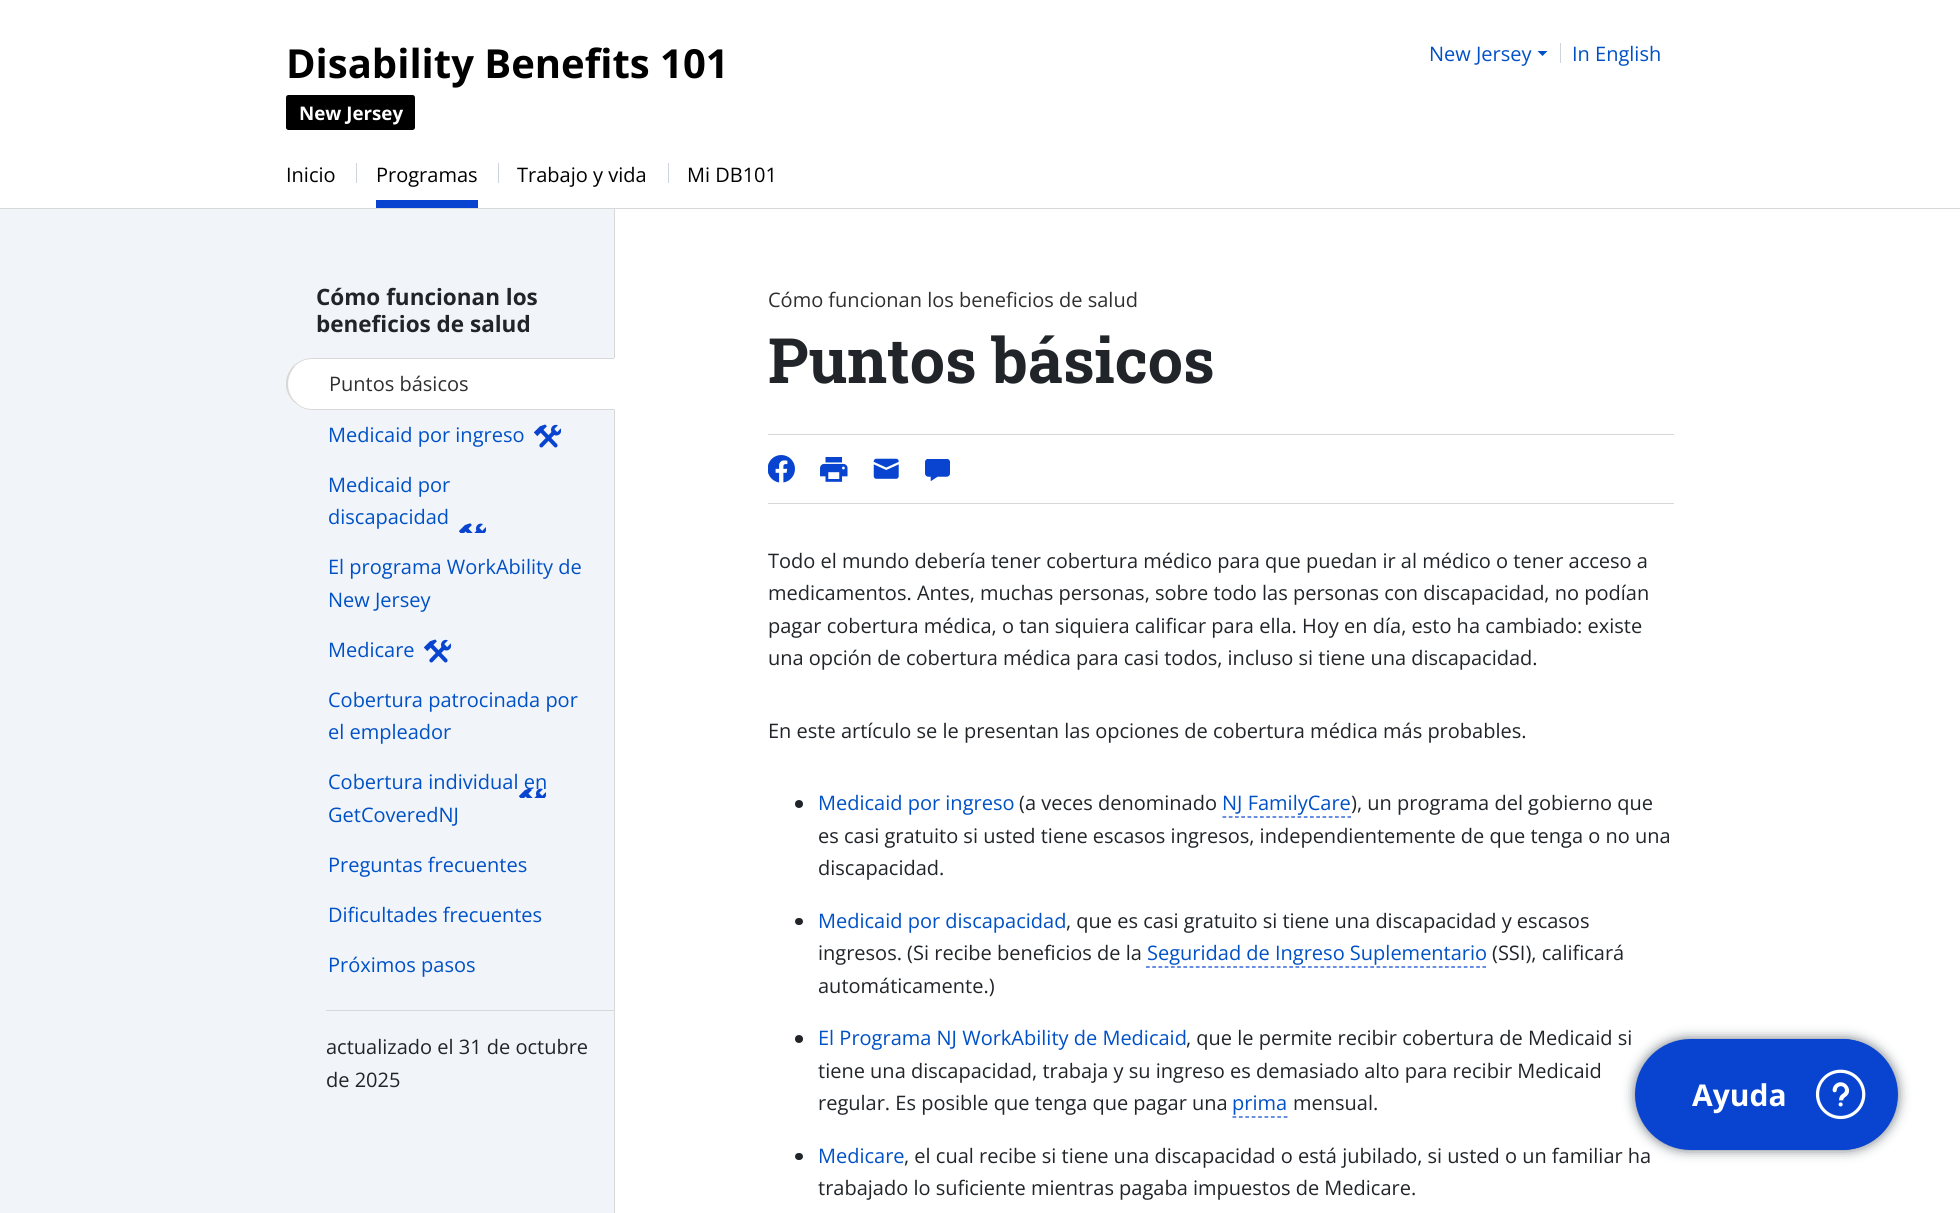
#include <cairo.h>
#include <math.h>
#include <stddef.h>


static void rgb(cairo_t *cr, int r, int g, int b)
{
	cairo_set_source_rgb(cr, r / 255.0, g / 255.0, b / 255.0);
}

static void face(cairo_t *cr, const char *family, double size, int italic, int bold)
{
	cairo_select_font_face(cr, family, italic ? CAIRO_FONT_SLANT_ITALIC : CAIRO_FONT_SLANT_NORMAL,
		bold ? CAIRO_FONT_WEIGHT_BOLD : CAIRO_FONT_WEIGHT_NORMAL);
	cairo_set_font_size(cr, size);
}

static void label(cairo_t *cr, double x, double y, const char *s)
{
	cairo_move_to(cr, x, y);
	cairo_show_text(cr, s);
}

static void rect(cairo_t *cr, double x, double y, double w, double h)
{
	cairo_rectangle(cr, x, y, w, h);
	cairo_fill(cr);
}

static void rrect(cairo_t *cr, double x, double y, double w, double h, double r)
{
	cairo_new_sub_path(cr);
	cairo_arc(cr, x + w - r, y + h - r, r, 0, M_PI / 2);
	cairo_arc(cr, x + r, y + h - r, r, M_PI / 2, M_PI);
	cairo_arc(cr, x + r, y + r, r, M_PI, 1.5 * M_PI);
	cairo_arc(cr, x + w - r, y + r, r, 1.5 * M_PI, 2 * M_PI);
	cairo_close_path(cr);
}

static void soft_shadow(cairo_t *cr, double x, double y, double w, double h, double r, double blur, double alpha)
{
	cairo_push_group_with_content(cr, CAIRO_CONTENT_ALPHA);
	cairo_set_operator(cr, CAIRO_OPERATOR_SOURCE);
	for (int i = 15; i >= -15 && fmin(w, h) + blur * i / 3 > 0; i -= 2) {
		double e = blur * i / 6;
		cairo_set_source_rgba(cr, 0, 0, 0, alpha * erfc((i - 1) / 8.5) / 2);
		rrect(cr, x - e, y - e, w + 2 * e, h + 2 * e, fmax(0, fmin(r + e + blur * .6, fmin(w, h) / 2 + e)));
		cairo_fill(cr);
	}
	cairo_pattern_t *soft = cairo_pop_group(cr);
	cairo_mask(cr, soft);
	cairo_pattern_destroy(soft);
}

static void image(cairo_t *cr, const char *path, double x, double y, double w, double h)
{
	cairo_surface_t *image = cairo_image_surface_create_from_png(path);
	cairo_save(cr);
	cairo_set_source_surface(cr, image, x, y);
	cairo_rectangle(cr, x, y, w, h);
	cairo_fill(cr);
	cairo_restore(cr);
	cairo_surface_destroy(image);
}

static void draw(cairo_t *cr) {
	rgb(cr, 255, 255, 255);
	cairo_paint(cr);
	face(cr, "Open Sans", 40, 0, 1);
	rgb(cr, 0, 0, 0);
	label(cr, 286, 78, "Disability Benefits 101");
	rrect(cr, 286, 95, 129, 35, 2.5);
	cairo_fill(cr);
	face(cr, "Open Sans", 18.75, 0, 1);
	rgb(cr, 255, 255, 255);
	label(cr, 299, 120, "New Jersey");
	face(cr, "Open Sans", 20, 0, 0);
	rgb(cr, 0, 80, 198);
	label(cr, 1429, 61, "New Jersey");
	cairo_new_path(cr);
	cairo_move_to(cr, 1537.5, 51);
	cairo_line_to(cr, 1547.5, 51);
	cairo_line_to(cr, 1542.5, 56);
	cairo_close_path(cr);
	cairo_fill(cr);
	rgb(cr, 206, 212, 218);
	rect(cr, 1560, 43, 1, 20);
	rgb(cr, 0, 80, 198);
	label(cr, 1572, 61, "In English");
	rgb(cr, 0, 0, 0);
	label(cr, 286, 182, "Inicio");
	rgb(cr, 206, 212, 218);
	rect(cr, 356, 163, 1, 20);
	rgb(cr, 8, 68, 207);
	rect(cr, 376, 200, 102, 8);
	rgb(cr, 0, 0, 0);
	label(cr, 376, 182, "Programas");
	rgb(cr, 206, 212, 218);
	rect(cr, 498, 163, 1, 20);
	rgb(cr, 0, 0, 0);
	label(cr, 517, 182, "Trabajo y vida");
	rgb(cr, 206, 212, 218);
	rect(cr, 668, 163, 1, 20);
	rgb(cr, 0, 0, 0);
	label(cr, 687, 182, "Mi DB101");
	rgb(cr, 216, 216, 216);
	rect(cr, 0, 208, 1960, 1);
	rgb(cr, 241, 245, 249);
	rect(cr, 0, 209, 614, 1004);
	rgb(cr, 216, 216, 216);
	rect(cr, 614, 208, 1, 1005);
	face(cr, "Open Sans", 22.5, 0, 1);
	rgb(cr, 33, 37, 41);
	label(cr, 316, 305, "Cómo funcionan los");
	label(cr, 316, 332, "beneficios de salud");
	rgb(cr, 255, 255, 255);
	cairo_new_path(cr);
	cairo_move_to(cr, 312, 358);
	cairo_line_to(cr, 615, 358);
	cairo_line_to(cr, 615, 410);
	cairo_line_to(cr, 312, 410);
	cairo_curve_to(cr, 297.5, 410, 286, 398.5, 286, 384);
	cairo_curve_to(cr, 286, 369.5, 297.5, 358, 312, 358);
	cairo_close_path(cr);
	cairo_fill(cr);
	rgb(cr, 216, 216, 216);
	cairo_new_path(cr);
	cairo_move_to(cr, 312, 358);
	cairo_curve_to(cr, 305, 358, 299, 361, 294, 365);
	cairo_line_to(cr, 295, 366);
	cairo_curve_to(cr, 299, 362, 305, 359, 312, 359);
	cairo_line_to(cr, 614, 359);
	cairo_line_to(cr, 614, 358);
	cairo_close_path(cr);
	cairo_fill(cr);
	cairo_new_path(cr);
	cairo_move_to(cr, 615, 410);
	cairo_line_to(cr, 614, 409);
	cairo_line_to(cr, 312, 409);
	cairo_curve_to(cr, 305, 409, 299, 406, 295, 401);
	cairo_line_to(cr, 294, 402);
	cairo_curve_to(cr, 299, 407, 305, 410, 312, 410);
	cairo_close_path(cr);
	cairo_fill(cr);
	cairo_new_path(cr);
	cairo_move_to(cr, 286, 380.5);
	cairo_curve_to(cr, 287, 374.5, 290, 369, 294, 365);
	cairo_line_to(cr, 295, 366.5);
	cairo_curve_to(cr, 286, 376, 285.5, 391.5, 295, 401.5);
	cairo_line_to(cr, 294, 402.5);
	cairo_curve_to(cr, 290, 398.5, 287, 393, 286, 387.5);
	cairo_close_path(cr);
	cairo_fill(cr);
	face(cr, "Open Sans", 20, 0, 0);
	rgb(cr, 47, 47, 47);
	label(cr, 329, 391, "Puntos básicos");
	rgb(cr, 0, 80, 198);
	label(cr, 328, 442, "Medicaid por ingreso");
	image(cr, "image0.png", 534, 424, 27, 24);
	label(cr, 328, 492, "Medicaid por");
	label(cr, 328, 524, "discapacidad");
	image(cr, "image1.png", 459, 523, 27, 10);
	label(cr, 328, 574, "El programa WorkAbility de");
	label(cr, 328, 607, "New Jersey");
	label(cr, 328, 657, "Medicare");
	image(cr, "image0.png", 424, 639, 27, 24);
	label(cr, 328, 707, "Cobertura patrocinada por");
	label(cr, 328, 739, "el empleador");
	image(cr, "image1.png", 519, 788, 27, 10);
	label(cr, 328, 789, "Cobertura individual en");
	label(cr, 328, 822, "GetCoveredNJ");
	label(cr, 328, 872, "Preguntas frecuentes");
	label(cr, 328, 922, "Dificultades frecuentes");
	label(cr, 328, 972, "Próximos pasos");
	rgb(cr, 216, 216, 216);
	rect(cr, 326, 1010, 288, 1);
	rgb(cr, 33, 37, 41);
	label(cr, 326, 1054, "actualizado el 31 de octubre");
	label(cr, 326, 1087, "de 2025");
	rgb(cr, 47, 47, 47);
	label(cr, 768, 307, "Cómo funcionan los beneficios de salud");
	face(cr, "Roboto Slab", 62.5, 0, 1);
	rgb(cr, 33, 37, 41);
	label(cr, 768, 383, "Puntos básicos");
	rgb(cr, 216, 216, 216);
	rect(cr, 768, 434, 906, 1);
	rect(cr, 768, 503, 906, 1);
	image(cr, "image2.png", 768, 455, 27, 28);
	image(cr, "image3.png", 820, 457, 28, 25);
	image(cr, "image4.png", 873, 458, 26, 21);
	image(cr, "image5.png", 925, 459, 25, 22);
	face(cr, "Open Sans", 20, 0, 0);
	rgb(cr, 33, 37, 41);
	label(cr, 768, 568, "Todo el mundo debería tener cobertura médico para que puedan ir al médico o tener acceso a");
	label(cr, 768, 600, "medicamentos. Antes, muchas personas, sobre todo las personas con discapacidad, no podían");
	label(cr, 768, 633, "pagar cobertura médica, o tan siquiera calificar para ella. Hoy en día, esto ha cambiado: existe");
	label(cr, 768, 665, "una opción de cobertura médica para casi todos, incluso si tiene una discapacidad.");
	label(cr, 768, 738, "En este artículo se le presentan las opciones de cobertura médica más probables.");
	cairo_new_path(cr);
	cairo_arc(cr, 799, 804, 4, 0, 2 * M_PI);
	cairo_fill(cr);
	rgb(cr, 0, 80, 198);
	label(cr, 818, 810, "Medicaid por ingreso");
	rgb(cr, 33, 37, 41);
	label(cr, 1019, 810, "(a veces denominado");
	rgb(cr, 0, 80, 198);
	label(cr, 1222, 810, "NJ FamilyCare");
	cairo_new_path(cr);
	cairo_move_to(cr, 1222.5, 817);
	cairo_line_to(cr, 1351, 817);
	rgb(cr, 8, 68, 207);
	cairo_set_line_width(cr, 1.2);
	cairo_set_dash(cr, (double[]){3.75, 2.5}, 2, 0);
	cairo_stroke(cr);
	rgb(cr, 33, 37, 41);
	label(cr, 1351, 810, "), un programa del gobierno que");
	label(cr, 818, 843, "es casi gratuito si usted tiene escasos ingresos, independientemente de que tenga o no una");
	label(cr, 818, 875, "discapacidad.");
	rrect(cr, 795, 918, 8, 7, 3.5);
	cairo_fill(cr);
	rgb(cr, 0, 80, 198);
	label(cr, 818, 928, "Medicaid por discapacidad");
	rgb(cr, 33, 37, 41);
	label(cr, 1066, 928, ", que es casi gratuito si tiene una discapacidad y escasos");
	label(cr, 818, 960, "ingresos. (Si recibe beneficios de la");
	rgb(cr, 0, 80, 198);
	label(cr, 1147, 960, "Seguridad de Ingreso Suplementario");
	cairo_new_path(cr);
	cairo_move_to(cr, 1146, 967);
	cairo_line_to(cr, 1486, 967);
	rgb(cr, 8, 68, 207);
	cairo_set_dash(cr, (double[]){3.75, 2.48}, 2, 0);
	cairo_stroke(cr);
	rgb(cr, 33, 37, 41);
	label(cr, 1492, 960, "(SSI), calificará");
	label(cr, 818, 993, "automáticamente.)");
	cairo_new_path(cr);
	cairo_arc(cr, 799, 1039, 4, 0, 2 * M_PI);
	cairo_fill(cr);
	rgb(cr, 0, 80, 198);
	label(cr, 818, 1045, "El Programa NJ WorkAbility de Medicaid");
	rgb(cr, 33, 37, 41);
	label(cr, 1186, 1045, ", que le permite recibir cobertura de Medicaid si");
	label(cr, 818, 1078, "tiene una discapacidad, trabaja y su ingreso es demasiado alto para recibir Medicaid");
	label(cr, 818, 1110, "regular. Es posible que tenga que pagar una");
	rgb(cr, 0, 80, 198);
	label(cr, 1232, 1110, "prima");
	cairo_new_path(cr);
	cairo_move_to(cr, 1232.5, 1117);
	cairo_line_to(cr, 1287.5, 1117);
	rgb(cr, 8, 68, 207);
	cairo_set_dash(cr, (double[]){3.75, 2.65}, 2, 0);
	cairo_stroke(cr);
	rgb(cr, 33, 37, 41);
	label(cr, 1293, 1110, "mensual.");
	rrect(cr, 795, 1153, 8, 7, 3.5);
	cairo_fill(cr);
	rgb(cr, 0, 80, 198);
	label(cr, 818, 1163, "Medicare");
	rgb(cr, 33, 37, 41);
	label(cr, 904, 1163, ", el cual recibe si tiene una discapacidad o está jubilado, si usted o un familiar ha");
	label(cr, 818, 1195, "trabajado lo suficiente mientras pagaba impuestos de Medicare.");
	rgb(cr, 108, 117, 125);
	soft_shadow(cr, 1635, 1039, 263, 111, 55.5, 6, 1);
	rgb(cr, 8, 68, 207);
	rrect(cr, 1635, 1039, 263, 111, 55.5);
	cairo_fill(cr);
	face(cr, "Open Sans", 30, 0, 1);
	rgb(cr, 255, 255, 255);
	label(cr, 1692, 1106, "Ayuda");
	image(cr, "image6.png", 1815, 1039, 74, 111);
}

int main(void) {
	cairo_surface_t *surface = cairo_image_surface_create(CAIRO_FORMAT_RGB24, 1960, 1213);
	cairo_t *cr = cairo_create(surface);
	cairo_font_options_t *options = cairo_font_options_create();
	cairo_font_options_set_hint_metrics(options, CAIRO_HINT_METRICS_OFF);
	cairo_font_options_set_hint_style(options, CAIRO_HINT_STYLE_NONE);
	cairo_set_font_options(cr, options);
	cairo_set_miter_limit(cr, 4);
	draw(cr);
	cairo_surface_write_to_png(surface, "render.png");
	cairo_font_options_destroy(options);
	cairo_destroy(cr);
	cairo_surface_destroy(surface);
	return 0;
}
